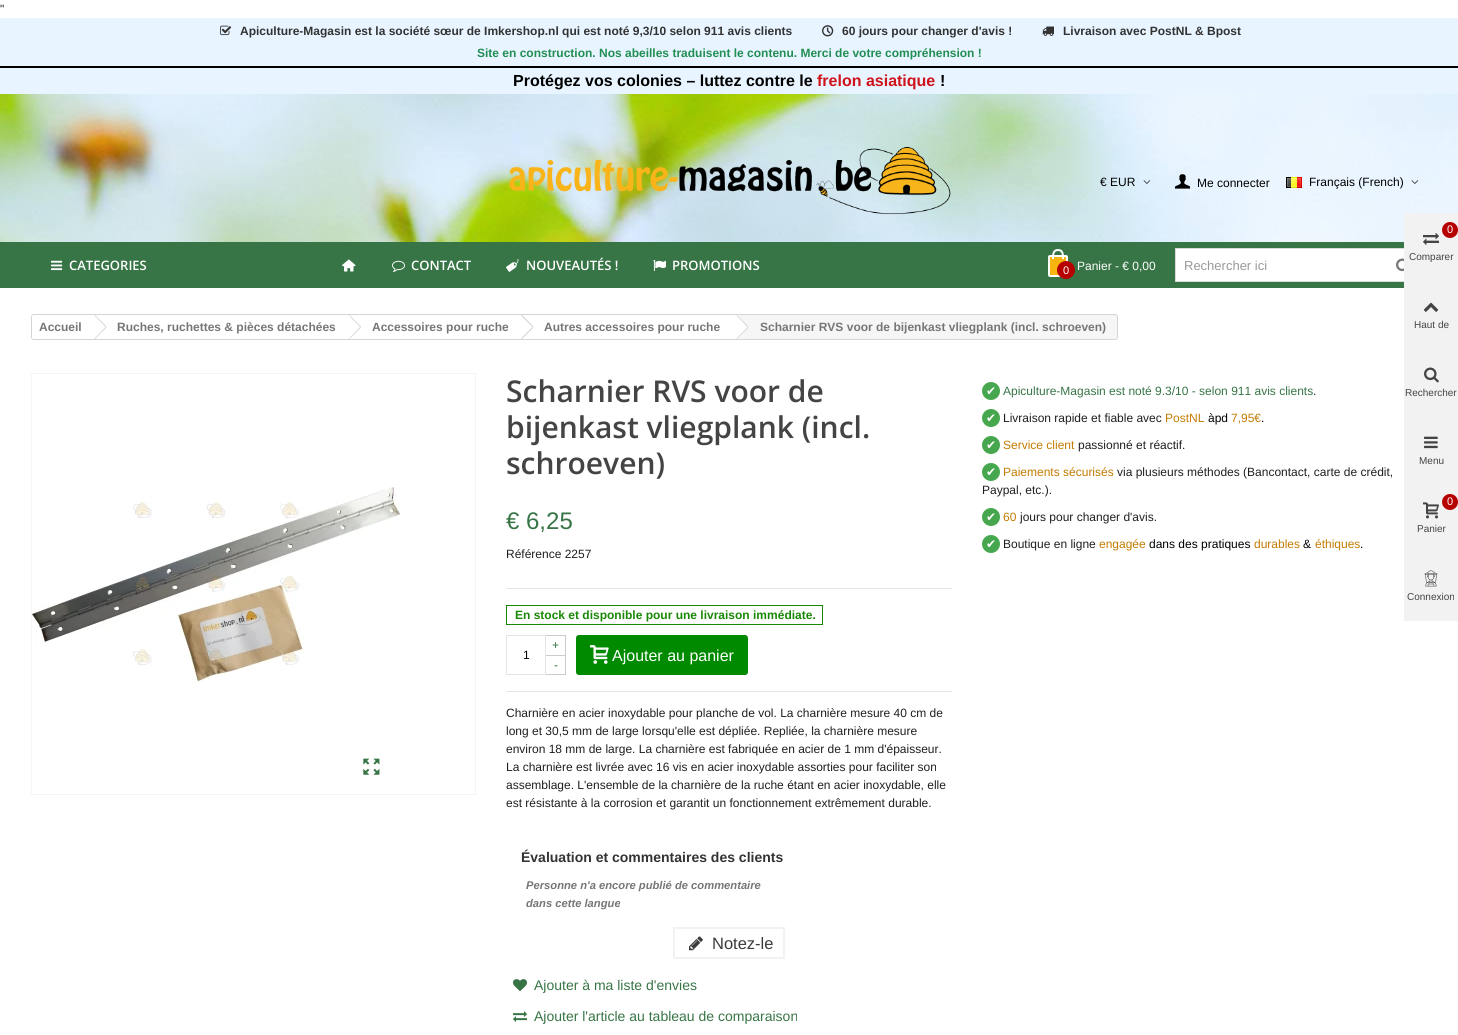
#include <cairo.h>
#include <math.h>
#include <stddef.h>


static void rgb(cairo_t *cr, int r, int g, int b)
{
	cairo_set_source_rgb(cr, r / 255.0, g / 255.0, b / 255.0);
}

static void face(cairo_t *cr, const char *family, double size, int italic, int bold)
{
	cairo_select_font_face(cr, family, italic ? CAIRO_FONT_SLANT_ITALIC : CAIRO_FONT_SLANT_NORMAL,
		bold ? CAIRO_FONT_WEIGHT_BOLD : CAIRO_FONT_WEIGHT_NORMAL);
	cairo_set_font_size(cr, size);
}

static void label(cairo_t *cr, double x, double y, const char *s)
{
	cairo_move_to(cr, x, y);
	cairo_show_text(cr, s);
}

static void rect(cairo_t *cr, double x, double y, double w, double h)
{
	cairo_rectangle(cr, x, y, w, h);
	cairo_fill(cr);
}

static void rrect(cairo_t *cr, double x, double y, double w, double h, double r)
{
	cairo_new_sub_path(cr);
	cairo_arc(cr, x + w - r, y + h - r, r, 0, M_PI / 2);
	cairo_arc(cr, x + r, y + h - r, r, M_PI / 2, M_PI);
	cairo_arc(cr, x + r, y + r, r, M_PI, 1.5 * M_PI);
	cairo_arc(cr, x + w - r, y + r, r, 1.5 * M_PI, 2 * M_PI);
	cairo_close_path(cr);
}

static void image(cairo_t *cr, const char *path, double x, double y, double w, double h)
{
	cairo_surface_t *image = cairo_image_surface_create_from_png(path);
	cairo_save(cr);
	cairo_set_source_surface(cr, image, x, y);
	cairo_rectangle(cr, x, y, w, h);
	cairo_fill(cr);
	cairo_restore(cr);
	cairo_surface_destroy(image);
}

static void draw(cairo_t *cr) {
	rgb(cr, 255, 255, 255);
	cairo_paint(cr);
	face(cr, "Liberation Sans", 12, 0, 0);
	rgb(cr, 31, 31, 31);
	label(cr, 0, 13, "\"");
	image(cr, "image0.png", 0, 94, 1458, 148);
	rgb(cr, 0, 0, 0);
	rect(cr, 0, 66, 1458, 2);
	rgb(cr, 232, 244, 255);
	rect(cr, 0, 18, 1458, 48);
	image(cr, "image1.png", 220, 25, 12, 11);
	face(cr, "Liberation Sans", 12, 0, 1);
	rgb(cr, 51, 51, 51);
	label(cr, 240, 35, "Apiculture-Magasin est la société sœur de Imkershop.nl qui est noté 9,3/10 selon 911 avis clients");
	image(cr, "image2.png", 822, 25, 12, 12);
	label(cr, 842, 35, "60 jours pour changer d'avis !");
	image(cr, "image3.png", 1042, 26, 12, 10);
	label(cr, 1063, 35, "Livraison avec PostNL & Bpost");
	rgb(cr, 33, 142, 83);
	label(cr, 477, 57, "Site en construction. Nos abeilles traduisent le contenu. Merci de votre compréhension !");
	rgb(cr, 232, 244, 255);
	rect(cr, 0, 68, 1458, 26);
	face(cr, "Liberation Sans", 16, 0, 1);
	rgb(cr, 0, 0, 0);
	label(cr, 513, 86, "Protégez vos colonies – luttez contre le");
	rgb(cr, 208, 18, 26);
	label(cr, 817, 86, "frelon asiatique");
	rgb(cr, 0, 0, 0);
	label(cr, 940, 86, "!");
	image(cr, "image4.png", 509, 147, 442, 68);
	face(cr, "Liberation Sans", 12, 0, 0);
	label(cr, 1100, 186, "€ EUR");
	image(cr, "image5.png", 1143, 180, 8, 4);
	image(cr, "image6.png", 1175, 174, 16, 15);
	label(cr, 1197, 187, "Me connecter");
	image(cr, "image7.png", 1286, 177, 16, 11);
	label(cr, 1309, 186, "Français (French)");
	image(cr, "image8.png", 1411, 180, 8, 4);
	rgb(cr, 55, 117, 70);
	rect(cr, 0, 242, 1404, 46);
	image(cr, "image9.png", 51, 260, 12, 11);
	face(cr, "Open Sans SemiBold", 13, 0, 0);
	rgb(cr, 255, 255, 255);
	label(cr, 69, 270, "CATEGORIES");
	image(cr, "image10.png", 342, 259, 14, 13);
	image(cr, "image11.png", 392, 260, 13, 12);
	label(cr, 411, 270, "CONTACT");
	image(cr, "image12.png", 506, 259, 13, 13);
	label(cr, 526, 270, "NOUVEAUTÉS !");
	image(cr, "image13.png", 653, 259, 13, 12);
	label(cr, 672, 270, "PROMOTIONS");
	rgb(cr, 248, 180, 15);
	rrect(cr, 1049, 256, 18, 20, 1);
	cairo_fill_preserve(cr);
	rgb(cr, 255, 255, 255);
	cairo_stroke(cr);
	cairo_set_fill_rule(cr, CAIRO_FILL_RULE_EVEN_ODD);
	cairo_new_path(cr);
	cairo_move_to(cr, 1058, 249);
	cairo_curve_to(cr, 1064, 249, 1064, 254.5, 1064, 259);
	cairo_line_to(cr, 1052, 259);
	cairo_curve_to(cr, 1052, 254.5, 1052, 249, 1058, 249);
	cairo_close_path(cr);
	cairo_move_to(cr, 1058, 251);
	cairo_curve_to(cr, 1062.5, 251, 1062, 256, 1062, 259);
	cairo_line_to(cr, 1054, 259);
	cairo_curve_to(cr, 1054, 256, 1053.5, 251, 1058, 251);
	cairo_close_path(cr);
	cairo_fill(cr);
	rgb(cr, 182, 0, 0);
	cairo_arc(cr, 1066, 270, 8, 0, 2 * M_PI);
	cairo_fill_preserve(cr);
	cairo_stroke(cr);
	face(cr, "Liberation Sans", 11, 0, 0);
	rgb(cr, 255, 255, 255);
	label(cr, 1063, 274, "0");
	face(cr, "Liberation Sans", 12, 0, 0);
	label(cr, 1077, 270, "Panier - € 0,00");
	rect(cr, 1176, 249, 228, 32);
	cairo_rectangle(cr, 1175.5, 248.5, 243, 33);
	rgb(cr, 218, 218, 218);
	cairo_set_line_width(cr, 1);
	cairo_stroke(cr);
	face(cr, "Liberation Sans", 13, 0, 0);
	rgb(cr, 153, 153, 153);
	label(cr, 1184, 270, "Rechercher ici");
	image(cr, "image14.png", 1396, 258, 8, 14);
	rgb(cr, 246, 246, 246);
	rrect(cr, 31.5, 314.5, 1086, 25, 2.5);
	cairo_fill_preserve(cr);
	rgb(cr, 214, 212, 212);
	cairo_stroke(cr);
	rgb(cr, 255, 255, 255);
	cairo_new_path(cr);
	cairo_move_to(cr, 34, 315);
	cairo_line_to(cr, 97, 315);
	cairo_line_to(cr, 97, 339);
	cairo_line_to(cr, 34, 339);
	cairo_curve_to(cr, 33, 339, 32, 338, 32, 337);
	cairo_line_to(cr, 32, 317);
	cairo_curve_to(cr, 32, 316, 33, 315, 34, 315);
	cairo_close_path(cr);
	cairo_fill(cr);
	face(cr, "Liberation Sans", 12, 0, 1);
	rgb(cr, 119, 118, 118);
	label(cr, 39, 331, "Accueil");
	rgb(cr, 255, 255, 255);
	cairo_set_fill_rule(cr, CAIRO_FILL_RULE_WINDING);
	cairo_new_path(cr);
	cairo_move_to(cr, 99, 315.5);
	cairo_line_to(cr, 109, 325.5);
	cairo_curve_to(cr, 110, 326.5, 110, 327.5, 109, 328.5);
	cairo_line_to(cr, 99, 338.5);
	cairo_curve_to(cr, 98.5, 339, 97, 339, 96.5, 338.5);
	cairo_line_to(cr, 86.5, 328.5);
	cairo_curve_to(cr, 85.5, 327.5, 85.5, 326.5, 86.5, 325.5);
	cairo_line_to(cr, 96.5, 315.5);
	cairo_curve_to(cr, 97, 315, 98.5, 315, 99, 315.5);
	cairo_close_path(cr);
	cairo_fill(cr);
	rect(cr, 99, 315, 251, 24);
	rgb(cr, 214, 212, 212);
	cairo_new_path(cr);
	cairo_move_to(cr, 95, 315);
	cairo_line_to(cr, 106.5, 326.5);
	cairo_line_to(cr, 105.5, 327);
	cairo_line_to(cr, 94.5, 315.5);
	cairo_close_path(cr);
	cairo_move_to(cr, 105.5, 327);
	cairo_line_to(cr, 106.5, 327.5);
	cairo_line_to(cr, 95, 339);
	cairo_line_to(cr, 94.5, 338.5);
	cairo_close_path(cr);
	cairo_fill(cr);
	rgb(cr, 119, 118, 118);
	label(cr, 117, 331, "Ruches, ruchettes & pièces détachées");
	rgb(cr, 255, 255, 255);
	cairo_new_path(cr);
	cairo_move_to(cr, 353.5, 315.5);
	cairo_line_to(cr, 363.5, 325.5);
	cairo_curve_to(cr, 364, 326.5, 364, 327.5, 363.5, 328.5);
	cairo_line_to(cr, 353.5, 338.5);
	cairo_curve_to(cr, 353, 339, 351.5, 339, 350.5, 338.5);
	cairo_line_to(cr, 341, 328.5);
	cairo_curve_to(cr, 340, 327.5, 340, 326.5, 341, 325.5);
	cairo_line_to(cr, 350.5, 315.5);
	cairo_curve_to(cr, 351.5, 315, 353, 315, 353.5, 315.5);
	cairo_close_path(cr);
	cairo_fill(cr);
	rect(cr, 350, 315, 172, 24);
	rgb(cr, 214, 212, 212);
	cairo_new_path(cr);
	cairo_move_to(cr, 349.5, 315);
	cairo_line_to(cr, 361, 326.5);
	cairo_line_to(cr, 360, 327);
	cairo_line_to(cr, 349, 315.5);
	cairo_close_path(cr);
	cairo_move_to(cr, 360, 327);
	cairo_line_to(cr, 361, 327.5);
	cairo_line_to(cr, 349.5, 339);
	cairo_line_to(cr, 349, 338.5);
	cairo_close_path(cr);
	cairo_fill(cr);
	rgb(cr, 119, 118, 118);
	label(cr, 372, 331, "Accessoires pour ruche");
	rgb(cr, 255, 255, 255);
	cairo_new_path(cr);
	cairo_move_to(cr, 526, 315.5);
	cairo_line_to(cr, 536, 325.5);
	cairo_curve_to(cr, 536.5, 326.5, 536.5, 327.5, 536, 328.5);
	cairo_line_to(cr, 526, 338.5);
	cairo_curve_to(cr, 525, 339, 524, 339, 523, 338.5);
	cairo_line_to(cr, 513, 328.5);
	cairo_curve_to(cr, 512.5, 327.5, 512.5, 326.5, 513, 325.5);
	cairo_line_to(cr, 523, 315.5);
	cairo_curve_to(cr, 524, 315, 525, 315, 526, 315.5);
	cairo_close_path(cr);
	cairo_fill(cr);
	rect(cr, 522, 315, 213, 24);
	rgb(cr, 214, 212, 212);
	cairo_new_path(cr);
	cairo_move_to(cr, 522, 315);
	cairo_line_to(cr, 533.5, 326.5);
	cairo_line_to(cr, 532.5, 327);
	cairo_line_to(cr, 521, 315.5);
	cairo_close_path(cr);
	cairo_move_to(cr, 532.5, 327);
	cairo_line_to(cr, 533.5, 327.5);
	cairo_line_to(cr, 522, 339);
	cairo_line_to(cr, 521, 338.5);
	cairo_close_path(cr);
	cairo_fill(cr);
	rgb(cr, 119, 118, 118);
	label(cr, 544, 331, "Autres accessoires pour ruche");
	rgb(cr, 255, 255, 255);
	cairo_new_path(cr);
	cairo_move_to(cr, 737.5, 315.5);
	cairo_line_to(cr, 747.5, 325.5);
	cairo_curve_to(cr, 748.5, 326.5, 748.5, 327.5, 747.5, 328.5);
	cairo_line_to(cr, 737.5, 338.5);
	cairo_curve_to(cr, 737, 339, 735.5, 339, 735, 338.5);
	cairo_line_to(cr, 725, 328.5);
	cairo_curve_to(cr, 724, 327.5, 724, 326.5, 725, 325.5);
	cairo_line_to(cr, 735, 315.5);
	cairo_curve_to(cr, 735.5, 315, 737, 315, 737.5, 315.5);
	cairo_close_path(cr);
	cairo_fill(cr);
	rgb(cr, 214, 212, 212);
	cairo_new_path(cr);
	cairo_move_to(cr, 737, 315);
	cairo_line_to(cr, 748.5, 326.5);
	cairo_line_to(cr, 747.5, 327);
	cairo_line_to(cr, 736.5, 315.5);
	cairo_close_path(cr);
	cairo_move_to(cr, 747.5, 327);
	cairo_line_to(cr, 748.5, 327.5);
	cairo_line_to(cr, 737, 339);
	cairo_line_to(cr, 736.5, 338.5);
	cairo_close_path(cr);
	cairo_fill(cr);
	rgb(cr, 119, 118, 118);
	label(cr, 760, 331, "Scharnier RVS voor de bijenkast vliegplank (incl. schroeven)");
	cairo_rectangle(cr, 31.5, 373.5, 444, 421);
	rgb(cr, 245, 245, 245);
	cairo_stroke(cr);
	image(cr, "image15.png", 32, 487, 368, 194);
	image(cr, "image16.png", 363, 758, 17, 17);
	face(cr, "Open Sans SemiBold", 30, 0, 0);
	rgb(cr, 68, 68, 68);
	label(cr, 506, 402, "Scharnier RVS voor de");
	label(cr, 506, 438, "bijenkast vliegplank (incl.");
	label(cr, 506, 474, "schroeven)");
	face(cr, "Liberation Sans", 24, 0, 0);
	rgb(cr, 55, 117, 70);
	label(cr, 506, 529, "€ 6,25");
	face(cr, "Liberation Sans", 12, 0, 0);
	rgb(cr, 31, 31, 31);
	label(cr, 506, 558, "Référence 2257");
	rgb(cr, 229, 229, 229);
	rect(cr, 506, 588, 446, 1);
	cairo_rectangle(cr, 506.5, 605.5, 316, 19);
	rgb(cr, 26, 136, 7);
	cairo_stroke(cr);
	face(cr, "Liberation Sans", 12, 0, 1);
	label(cr, 515, 619, "En stock et disponible pour une livraison immédiate.");
	rgb(cr, 229, 229, 229);
	rect(cr, 506, 691, 446, 1);
	rgb(cr, 204, 204, 204);
	rect(cr, 546, 635, 20, 1);
	rect(cr, 565, 635, 1, 20);
	face(cr, "Liberation Sans", 12, 0, 0);
	rgb(cr, 55, 117, 70);
	label(cr, 552, 649, "+");
	cairo_rectangle(cr, 506.5, 635.5, 39, 39);
	rgb(cr, 229, 229, 229);
	cairo_stroke(cr);
	rgb(cr, 0, 0, 0);
	label(cr, 523, 659, "1");
	rgb(cr, 204, 204, 204);
	rect(cr, 546, 655, 20, 1);
	rect(cr, 565, 655, 1, 20);
	rect(cr, 546, 674, 20, 1);
	rgb(cr, 55, 117, 70);
	label(cr, 554, 669, "-");
	rgb(cr, 0, 138, 0);
	rrect(cr, 577, 636, 170, 38, 2);
	cairo_fill_preserve(cr);
	cairo_set_line_width(cr, 2);
	cairo_stroke(cr);
	image(cr, "image17.png", 590, 645, 19, 19);
	face(cr, "Liberation Sans", 16, 0, 0);
	rgb(cr, 255, 255, 255);
	label(cr, 612, 661, "Ajouter au panier");
	face(cr, "Liberation Sans", 12, 0, 0);
	rgb(cr, 31, 31, 31);
	label(cr, 506, 717, "Charnière en acier inoxydable pour planche de vol. La charnière mesure 40 cm de");
	label(cr, 506, 735, "long et 30,5 mm de large lorsqu'elle est dépliée. Repliée, la charnière mesure");
	label(cr, 506, 753, "environ 18 mm de large. La charnière est fabriquée en acier de 1 mm d'épaisseur.");
	label(cr, 506, 771, "La charnière est livrée avec 16 vis en acier inoxydable assorties pour faciliter son");
	label(cr, 506, 789, "assemblage. L'ensemble de la charnière de la ruche étant en acier inoxydable, elle");
	label(cr, 506, 807, "est résistante à la corrosion et garantit un fonctionnement extrêmement durable.");
	face(cr, "Liberation Sans", 14, 0, 1);
	rgb(cr, 51, 51, 51);
	label(cr, 521, 862, "Évaluation et commentaires des clients");
	face(cr, "Liberation Sans", 11.2, 1, 1);
	rgb(cr, 119, 118, 118);
	label(cr, 526, 889, "Personne n'a encore publié de commentaire");
	label(cr, 526, 907, "dans cette langue");
	cairo_rectangle(cr, 674, 928, 110, 30);
	rgb(cr, 242, 242, 242);
	cairo_stroke(cr);
	image(cr, "image18.png", 689, 936, 14, 15);
	face(cr, "Liberation Sans", 16.5, 0, 0);
	rgb(cr, 59, 59, 59);
	label(cr, 712, 949, "Notez-le");
	image(cr, "image19.png", 513, 979, 14, 12);
	face(cr, "Liberation Sans", 14, 0, 0);
	rgb(cr, 55, 117, 70);
	label(cr, 534, 990, "Ajouter à ma liste d'envies");
	image(cr, "image20.png", 513, 1011, 14, 11);
	label(cr, 534, 1021, "Ajouter l'article au tableau de comparaison");
	rgb(cr, 70, 167, 78);
	cairo_new_path(cr);
	cairo_arc(cr, 991, 391, 9, 0, 2 * M_PI);
	cairo_fill(cr);
	face(cr, "DejaVu Sans", 12, 0, 0);
	rgb(cr, 255, 255, 255);
	label(cr, 986, 395, "✔");
	face(cr, "Liberation Sans", 12, 0, 0);
	rgb(cr, 55, 117, 70);
	label(cr, 1003, 395, "Apiculture-Magasin est noté 9.3/10 - selon 911 avis clients");
	rgb(cr, 31, 31, 31);
	label(cr, 1313, 395, ".");
	rgb(cr, 70, 167, 78);
	cairo_new_path(cr);
	cairo_arc(cr, 991, 418, 9, 0, 2 * M_PI);
	cairo_fill(cr);
	face(cr, "DejaVu Sans", 12, 0, 0);
	rgb(cr, 255, 255, 255);
	label(cr, 986, 422, "✔");
	face(cr, "Liberation Sans", 12, 0, 0);
	rgb(cr, 31, 31, 31);
	label(cr, 1003, 422, "Livraison rapide et fiable avec");
	rgb(cr, 196, 123, 2);
	label(cr, 1165, 422, "PostNL");
	rgb(cr, 0, 0, 0);
	label(cr, 1208, 422, "àpd");
	rgb(cr, 196, 123, 2);
	label(cr, 1231, 422, "7,95€");
	rgb(cr, 0, 0, 0);
	label(cr, 1261, 422, ".");
	rgb(cr, 70, 167, 78);
	cairo_new_path(cr);
	cairo_arc(cr, 991, 445, 9, 0, 2 * M_PI);
	cairo_fill(cr);
	face(cr, "DejaVu Sans", 12, 0, 0);
	rgb(cr, 255, 255, 255);
	label(cr, 986, 449, "✔");
	face(cr, "Liberation Sans", 12, 0, 0);
	rgb(cr, 196, 123, 2);
	label(cr, 1003, 449, "Service client");
	rgb(cr, 31, 31, 31);
	label(cr, 1078, 449, "passionné et réactif.");
	rgb(cr, 196, 123, 2);
	label(cr, 1003, 476, "Paiements sécurisés");
	rgb(cr, 31, 31, 31);
	label(cr, 1117, 476, "via plusieurs méthodes (Bancontact, carte de crédit,");
	label(cr, 982, 494, "Paypal, etc.).");
	rgb(cr, 70, 167, 78);
	cairo_new_path(cr);
	cairo_arc(cr, 991, 472, 9, 0, 2 * M_PI);
	cairo_fill(cr);
	face(cr, "DejaVu Sans", 12, 0, 0);
	rgb(cr, 255, 255, 255);
	label(cr, 986, 476, "✔");
	rgb(cr, 70, 167, 78);
	cairo_new_path(cr);
	cairo_arc(cr, 991, 517, 9, 0, 2 * M_PI);
	cairo_fill(cr);
	rgb(cr, 255, 255, 255);
	label(cr, 986, 521, "✔");
	face(cr, "Liberation Sans", 12, 0, 0);
	rgb(cr, 196, 123, 2);
	label(cr, 1003, 521, "60");
	rgb(cr, 31, 31, 31);
	label(cr, 1020, 521, "jours pour changer d'avis.");
	rgb(cr, 70, 167, 78);
	cairo_new_path(cr);
	cairo_arc(cr, 991, 544, 9, 0, 2 * M_PI);
	cairo_fill(cr);
	face(cr, "DejaVu Sans", 12, 0, 0);
	rgb(cr, 255, 255, 255);
	label(cr, 986, 548, "✔");
	face(cr, "Liberation Sans", 12, 0, 0);
	rgb(cr, 31, 31, 31);
	label(cr, 1003, 548, "Boutique en ligne");
	rgb(cr, 196, 123, 2);
	label(cr, 1099, 548, "engagée");
	rgb(cr, 0, 0, 0);
	label(cr, 1149, 548, "dans des pratiques");
	rgb(cr, 196, 123, 2);
	label(cr, 1254, 548, "durables");
	rgb(cr, 0, 0, 0);
	label(cr, 1303, 548, "&");
	rgb(cr, 196, 123, 2);
	label(cr, 1315, 548, "éthiques");
	rgb(cr, 0, 0, 0);
	label(cr, 1360, 548, ".");
	rgb(cr, 242, 242, 242);
	rect(cr, 1404, 213, 54, 408);
	rgb(cr, 182, 0, 0);
	cairo_new_path(cr);
	cairo_arc(cr, 1450, 230, 8, 0, 2 * M_PI);
	cairo_fill(cr);
	face(cr, "Liberation Sans", 11, 0, 0);
	rgb(cr, 255, 255, 255);
	label(cr, 1447, 233, "0");
	image(cr, "image21.png", 1423, 233, 16, 12);
	face(cr, "Liberation Sans", 10, 0, 0);
	rgb(cr, 68, 68, 68);
	label(cr, 1409, 260, "Comparer");
	image(cr, "image22.png", 1423, 302, 16, 10);
	label(cr, 1414, 328, "Haut de");
	image(cr, "image23.png", 1424, 367, 15, 16);
	label(cr, 1405, 396, "Rechercher");
	image(cr, "image24.png", 1424, 436, 14, 13);
	label(cr, 1419, 464, "Menu");
	image(cr, "image25.png", 1423, 502, 16, 17);
	rgb(cr, 182, 0, 0);
	cairo_arc(cr, 1450, 502, 8, 0, 2 * M_PI);
	cairo_fill(cr);
	face(cr, "Liberation Sans", 11, 0, 0);
	rgb(cr, 255, 255, 255);
	label(cr, 1447, 505, "0");
	face(cr, "Liberation Sans", 10, 0, 0);
	rgb(cr, 68, 68, 68);
	label(cr, 1417, 532, "Panier");
	image(cr, "image26.png", 1424, 570, 14, 17);
	label(cr, 1407, 600, "Connexion");
}

int main(void) {
	cairo_surface_t *surface = cairo_image_surface_create(CAIRO_FORMAT_RGB24, 1458, 1035);
	cairo_t *cr = cairo_create(surface);
	cairo_font_options_t *options = cairo_font_options_create();
	cairo_font_options_set_hint_metrics(options, CAIRO_HINT_METRICS_OFF);
	cairo_font_options_set_hint_style(options, CAIRO_HINT_STYLE_NONE);
	cairo_set_font_options(cr, options);
	cairo_set_miter_limit(cr, 4);
	draw(cr);
	cairo_surface_write_to_png(surface, "render.png");
	cairo_font_options_destroy(options);
	cairo_destroy(cr);
	cairo_surface_destroy(surface);
	return 0;
}
